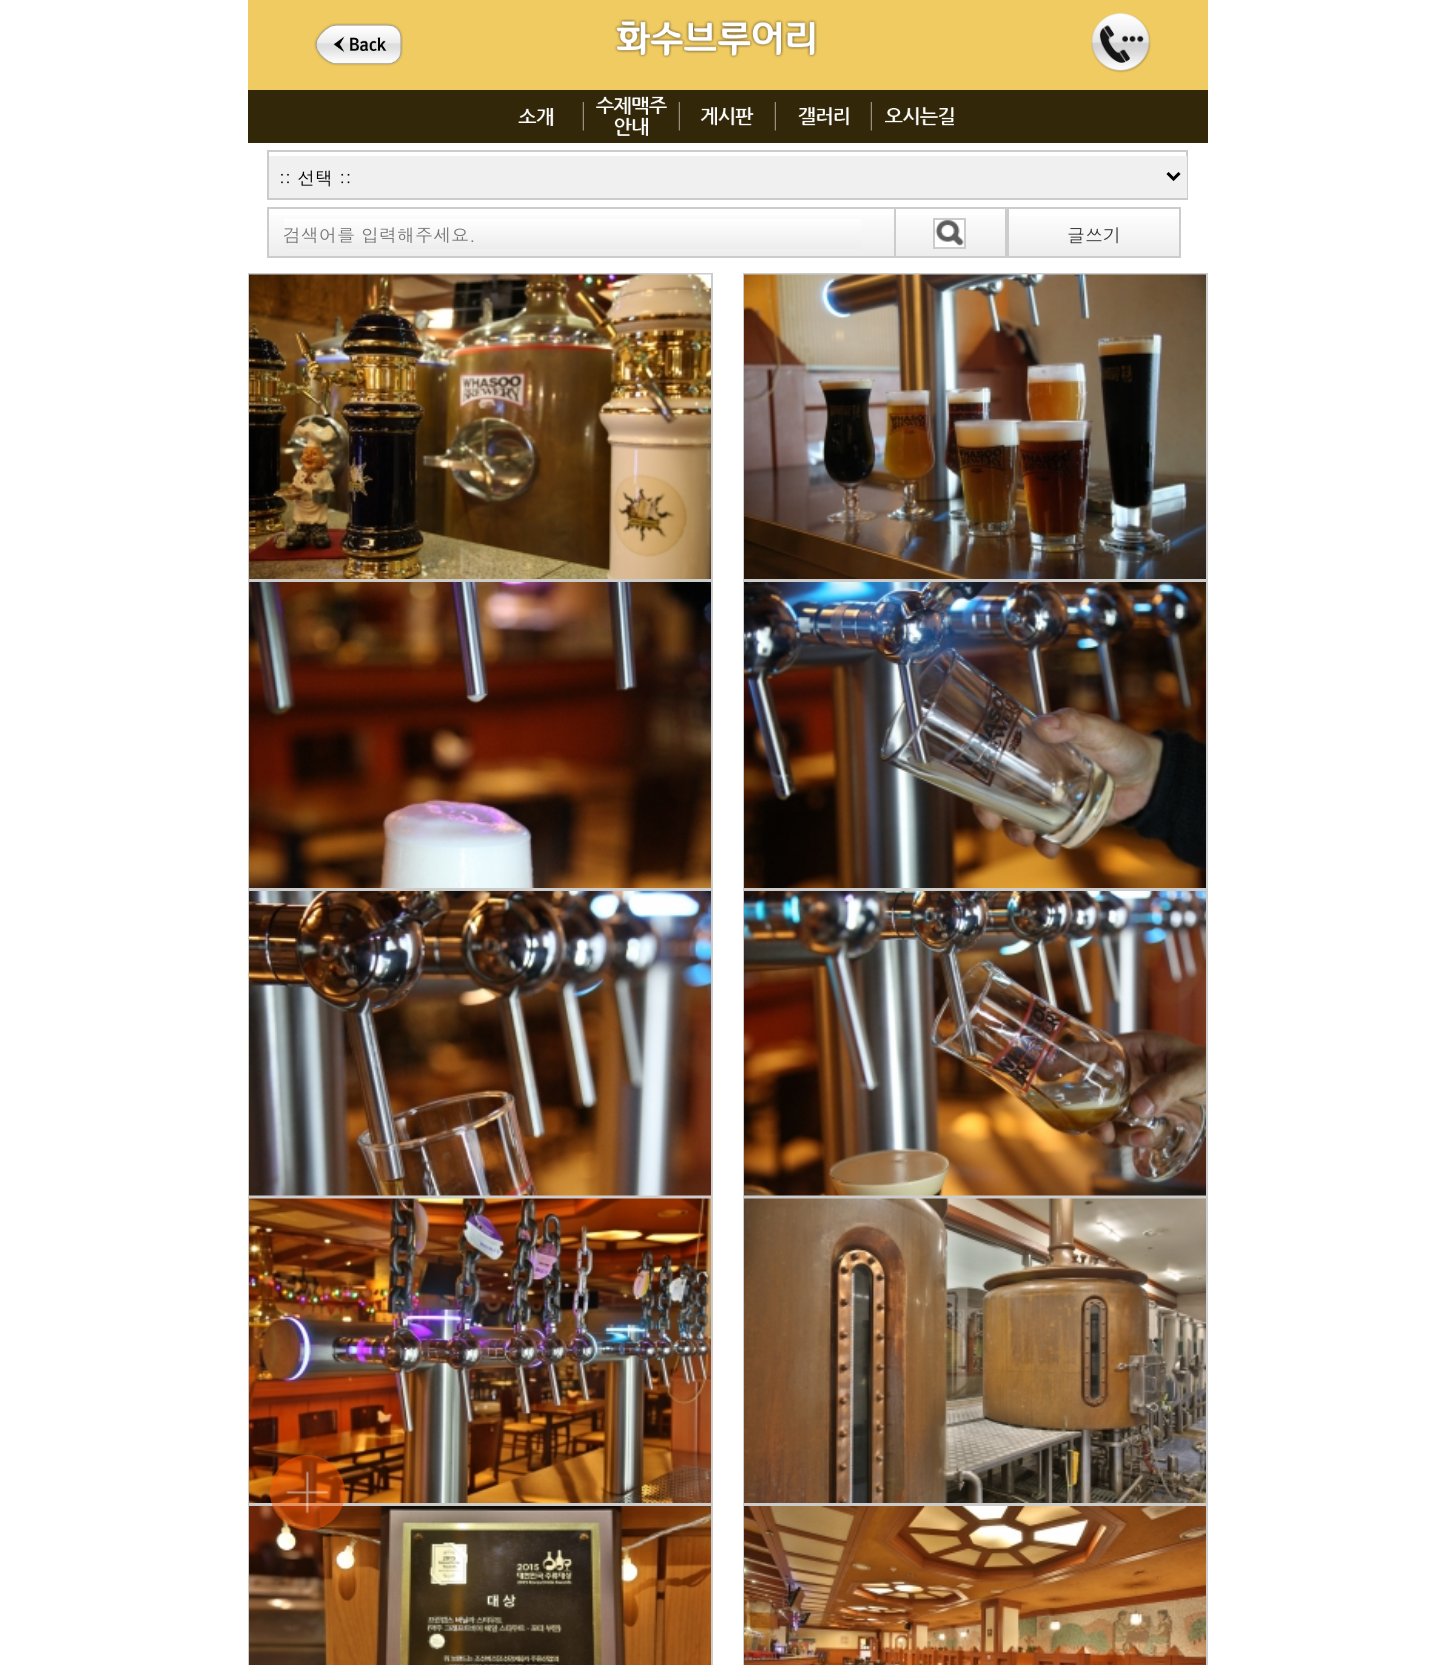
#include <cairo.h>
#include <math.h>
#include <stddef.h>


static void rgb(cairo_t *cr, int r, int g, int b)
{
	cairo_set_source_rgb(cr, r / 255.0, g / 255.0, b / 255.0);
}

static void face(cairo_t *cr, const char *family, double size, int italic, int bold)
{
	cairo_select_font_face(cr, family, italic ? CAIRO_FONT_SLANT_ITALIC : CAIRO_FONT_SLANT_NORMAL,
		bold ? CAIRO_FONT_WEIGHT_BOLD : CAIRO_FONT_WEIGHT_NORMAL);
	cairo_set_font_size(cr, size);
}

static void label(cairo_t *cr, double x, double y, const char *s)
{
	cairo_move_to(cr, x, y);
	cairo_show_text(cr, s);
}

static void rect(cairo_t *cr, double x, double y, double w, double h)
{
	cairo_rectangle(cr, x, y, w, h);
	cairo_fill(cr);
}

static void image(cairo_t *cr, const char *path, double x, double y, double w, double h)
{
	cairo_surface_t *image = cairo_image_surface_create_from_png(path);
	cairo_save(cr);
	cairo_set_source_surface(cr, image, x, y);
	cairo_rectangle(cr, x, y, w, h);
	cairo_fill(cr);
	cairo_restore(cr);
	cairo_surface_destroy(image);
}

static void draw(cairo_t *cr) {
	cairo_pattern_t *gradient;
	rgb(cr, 255, 255, 255);
	cairo_paint(cr);
	rgb(cr, 239, 203, 97);
	rect(cr, 248, 0, 960, 90);
	image(cr, "image0.png", 314, 23, 89, 43);
	image(cr, "image1.png", 614, 19, 203, 39);
	image(cr, "image2.png", 1091, 13, 60, 60);
	rgb(cr, 50, 39, 9);
	rect(cr, 248, 90, 960, 53);
	image(cr, "image3.png", 518, 102, 66, 29);
	image(cr, "image4.png", 596, 96, 84, 40);
	image(cr, "image5.png", 700, 102, 76, 29);
	image(cr, "image6.png", 798, 102, 74, 29);
	image(cr, "image7.png", 885, 107, 69, 19);
	cairo_rectangle(cr, 268, 151, 919, 48);
	rgb(cr, 204, 204, 204);
	cairo_stroke(cr);
	rgb(cr, 240, 240, 240);
	rect(cr, 269, 156, 918, 42);
	cairo_new_path(cr);
	cairo_move_to(cr, 1167.5, 173);
	cairo_line_to(cr, 1173.5, 179);
	cairo_line_to(cr, 1179.5, 173);
	rgb(cr, 0, 0, 0);
	cairo_set_line_width(cr, 3);
	cairo_stroke(cr);
	face(cr, "Dotum", 18, 0, 0);
	label(cr, 279, 185, ":: 선택 ::");
	gradient = cairo_pattern_create_linear(637, 208, 637, 257);
	cairo_pattern_add_color_stop_rgba(gradient, 0, 1, 1, 1, 1);
	cairo_pattern_add_color_stop_rgba(gradient, 1, 0.929, 0.929, 0.929, 1);
	cairo_set_source(cr, gradient);
	cairo_pattern_destroy(gradient);
	rect(cr, 269, 215, 736, 41);
	cairo_rectangle(cr, 268, 208, 738, 49);
	rgb(cr, 204, 204, 204);
	cairo_set_line_width(cr, 2);
	cairo_stroke(cr);
	gradient = cairo_pattern_create_linear(572, 219, 572, 249);
	cairo_pattern_add_color_stop_rgba(gradient, 0, 1, 1, 1, 1);
	cairo_pattern_add_color_stop_rgba(gradient, 1, 0.929, 0.929, 0.929, 1);
	cairo_set_source(cr, gradient);
	cairo_pattern_destroy(gradient);
	rect(cr, 284, 219, 577, 30);
	rgb(cr, 117, 117, 117);
	label(cr, 283, 242, "검색어를 입력해주세요.");
	rgb(cr, 204, 204, 204);
	rect(cr, 894, 209, 2, 48);
	rgb(cr, 255, 255, 255);
	cairo_rectangle(cr, 934, 219, 31, 29);
	cairo_fill_preserve(cr);
	rgb(cr, 204, 204, 204);
	cairo_stroke(cr);
	image(cr, "image8.png", 935, 220, 29, 26);
	gradient = cairo_pattern_create_linear(1094, 209, 1094, 257);
	cairo_pattern_add_color_stop_rgba(gradient, 0, 1, 1, 1, 1);
	cairo_pattern_add_color_stop_rgba(gradient, 1, 0.929, 0.929, 0.929, 1);
	cairo_set_source(cr, gradient);
	cairo_pattern_destroy(gradient);
	rect(cr, 1009, 216, 170, 40);
	cairo_rectangle(cr, 1008, 208, 172, 49);
	rgb(cr, 204, 204, 204);
	cairo_stroke(cr);
	rgb(cr, 51, 51, 51);
	label(cr, 1067, 242, "글쓰기");
	cairo_rectangle(cr, 249, 274, 463, 306);
	rgb(cr, 204, 204, 204);
	cairo_stroke(cr);
	image(cr, "image9.png", 249, 274, 462, 305);
	cairo_rectangle(cr, 744, 274, 463, 306);
	cairo_stroke(cr);
	image(cr, "image10.png", 744, 274, 462, 305);
	cairo_rectangle(cr, 249, 582, 463, 307);
	cairo_stroke(cr);
	image(cr, "image11.png", 249, 582, 462, 306);
	cairo_rectangle(cr, 744, 582, 463, 307);
	cairo_stroke(cr);
	image(cr, "image12.png", 744, 582, 462, 306);
	cairo_rectangle(cr, 249, 891, 463, 305);
	cairo_stroke(cr);
	image(cr, "image13.png", 249, 891, 462, 305);
	cairo_rectangle(cr, 744, 891, 463, 305);
	cairo_stroke(cr);
	image(cr, "image14.png", 744, 891, 462, 305);
	cairo_rectangle(cr, 249, 1198, 463, 306);
	cairo_stroke(cr);
	image(cr, "image15.png", 249, 1198, 462, 305);
	cairo_rectangle(cr, 744, 1198, 463, 306);
	cairo_stroke(cr);
	image(cr, "image16.png", 744, 1198, 462, 305);
	cairo_rectangle(cr, 249, 1506, 463, 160);
	cairo_stroke(cr);
	image(cr, "image17.png", 249, 1506, 462, 159);
	cairo_rectangle(cr, 744, 1506, 463, 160);
	cairo_stroke(cr);
	image(cr, "image18.png", 744, 1506, 462, 159);
	cairo_set_source_rgba(cr, 1, 0.337, 0, 0.5);
	cairo_arc(cr, 307.5, 1492.5, 37.5, 0, 2 * M_PI);
	cairo_fill(cr);
	image(cr, "image19.png", 286, 1471, 43, 43);
}

int main(void) {
	cairo_surface_t *surface = cairo_image_surface_create(CAIRO_FORMAT_RGB24, 1455, 1665);
	cairo_t *cr = cairo_create(surface);
	cairo_font_options_t *options = cairo_font_options_create();
	cairo_font_options_set_hint_metrics(options, CAIRO_HINT_METRICS_OFF);
	cairo_font_options_set_hint_style(options, CAIRO_HINT_STYLE_NONE);
	cairo_set_font_options(cr, options);
	cairo_set_miter_limit(cr, 4);
	draw(cr);
	cairo_surface_write_to_png(surface, "render.png");
	cairo_font_options_destroy(options);
	cairo_destroy(cr);
	cairo_surface_destroy(surface);
	return 0;
}
